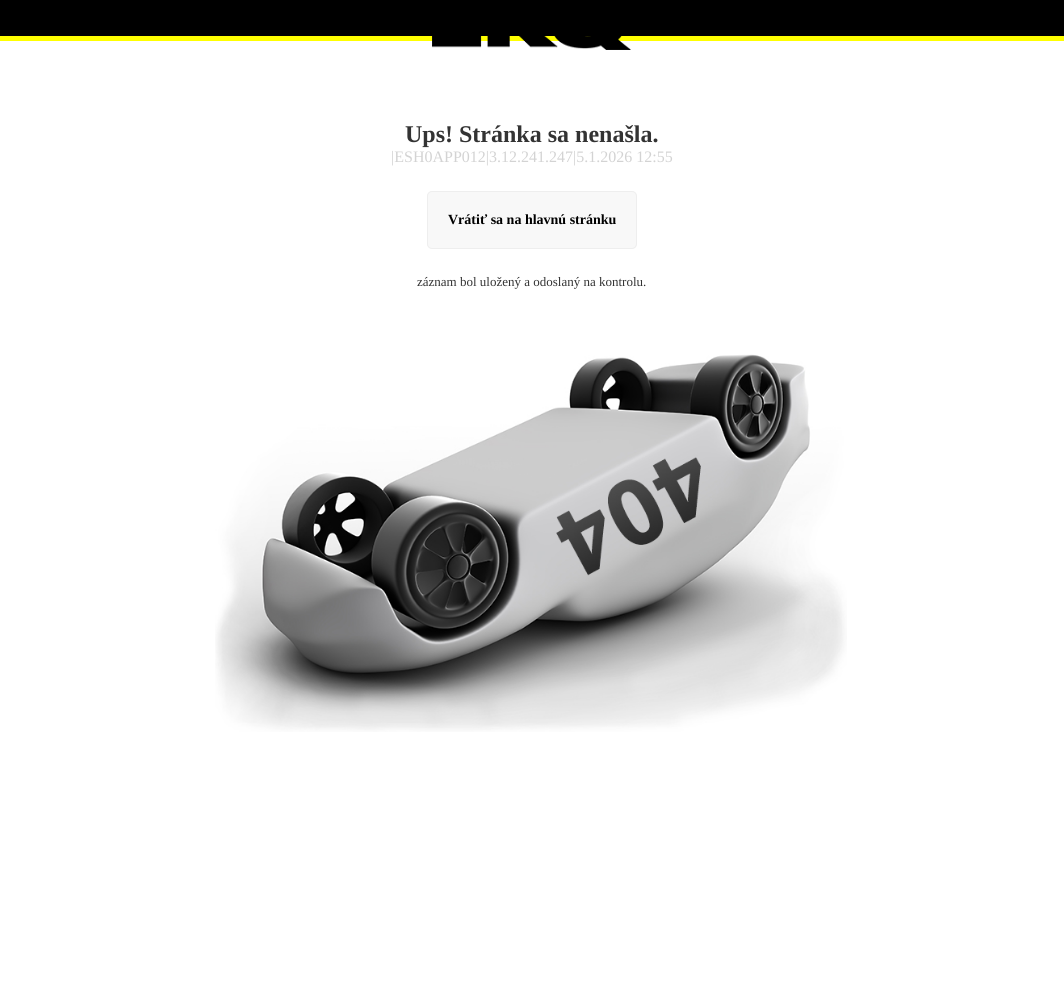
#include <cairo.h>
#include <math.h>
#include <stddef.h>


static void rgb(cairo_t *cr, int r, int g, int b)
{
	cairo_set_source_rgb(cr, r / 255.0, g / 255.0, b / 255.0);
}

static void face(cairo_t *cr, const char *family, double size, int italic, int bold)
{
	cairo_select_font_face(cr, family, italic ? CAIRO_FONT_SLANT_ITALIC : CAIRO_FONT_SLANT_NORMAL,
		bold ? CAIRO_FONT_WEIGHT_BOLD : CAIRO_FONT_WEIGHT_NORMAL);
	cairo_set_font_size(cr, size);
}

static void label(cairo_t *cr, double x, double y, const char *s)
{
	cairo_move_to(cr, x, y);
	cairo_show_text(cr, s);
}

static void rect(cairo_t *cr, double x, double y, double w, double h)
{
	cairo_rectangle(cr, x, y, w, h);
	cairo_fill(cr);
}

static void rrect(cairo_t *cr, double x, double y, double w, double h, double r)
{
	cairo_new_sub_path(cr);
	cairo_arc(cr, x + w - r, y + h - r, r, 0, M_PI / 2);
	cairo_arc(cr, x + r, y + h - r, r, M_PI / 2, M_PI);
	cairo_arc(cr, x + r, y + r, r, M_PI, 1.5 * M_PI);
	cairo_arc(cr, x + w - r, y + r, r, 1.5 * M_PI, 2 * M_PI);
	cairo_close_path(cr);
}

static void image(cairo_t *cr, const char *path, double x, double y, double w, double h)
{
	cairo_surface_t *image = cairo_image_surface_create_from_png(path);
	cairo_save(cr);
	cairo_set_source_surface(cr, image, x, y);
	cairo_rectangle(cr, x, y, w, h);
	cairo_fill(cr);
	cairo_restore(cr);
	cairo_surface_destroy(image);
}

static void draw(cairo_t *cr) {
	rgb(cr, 255, 255, 255);
	cairo_paint(cr);
	rgb(cr, 0, 0, 0);
	rect(cr, 0, 0, 1064, 36);
	rgb(cr, 255, 255, 0);
	rect(cr, 0, 36, 1064, 5);
	image(cr, "image0.png", 432, 36, 199, 14);
	face(cr, "Liberation Serif", 24, 0, 1);
	rgb(cr, 51, 51, 51);
	label(cr, 405, 142, "Ups! Stránka sa nenašla.");
	face(cr, "Liberation Serif", 16, 0, 0);
	rgb(cr, 211, 211, 211);
	label(cr, 391, 162, "|ESH0APP012|3.12.241.247|5.1.2026 12:55");
	rgb(cr, 248, 248, 248);
	rrect(cr, 427.5, 191.5, 209, 57, 4.5);
	cairo_fill_preserve(cr);
	rgb(cr, 238, 238, 238);
	cairo_set_line_width(cr, 1);
	cairo_stroke(cr);
	face(cr, "Liberation Serif", 14, 0, 1);
	rgb(cr, 0, 0, 0);
	label(cr, 448, 224, "Vrátiť sa na hlavnú stránku");
	face(cr, "Liberation Serif", 13, 0, 0);
	rgb(cr, 51, 51, 51);
	label(cr, 417, 286, "záznam bol uložený a odoslaný na kontrolu.");
	image(cr, "image1.png", 215, 354, 632, 378);
}

int main(void) {
	cairo_surface_t *surface = cairo_image_surface_create(CAIRO_FORMAT_RGB24, 1064, 991);
	cairo_t *cr = cairo_create(surface);
	cairo_font_options_t *options = cairo_font_options_create();
	cairo_font_options_set_hint_metrics(options, CAIRO_HINT_METRICS_OFF);
	cairo_font_options_set_hint_style(options, CAIRO_HINT_STYLE_NONE);
	cairo_set_font_options(cr, options);
	cairo_set_miter_limit(cr, 4);
	draw(cr);
	cairo_surface_write_to_png(surface, "render.png");
	cairo_font_options_destroy(options);
	cairo_destroy(cr);
	cairo_surface_destroy(surface);
	return 0;
}
